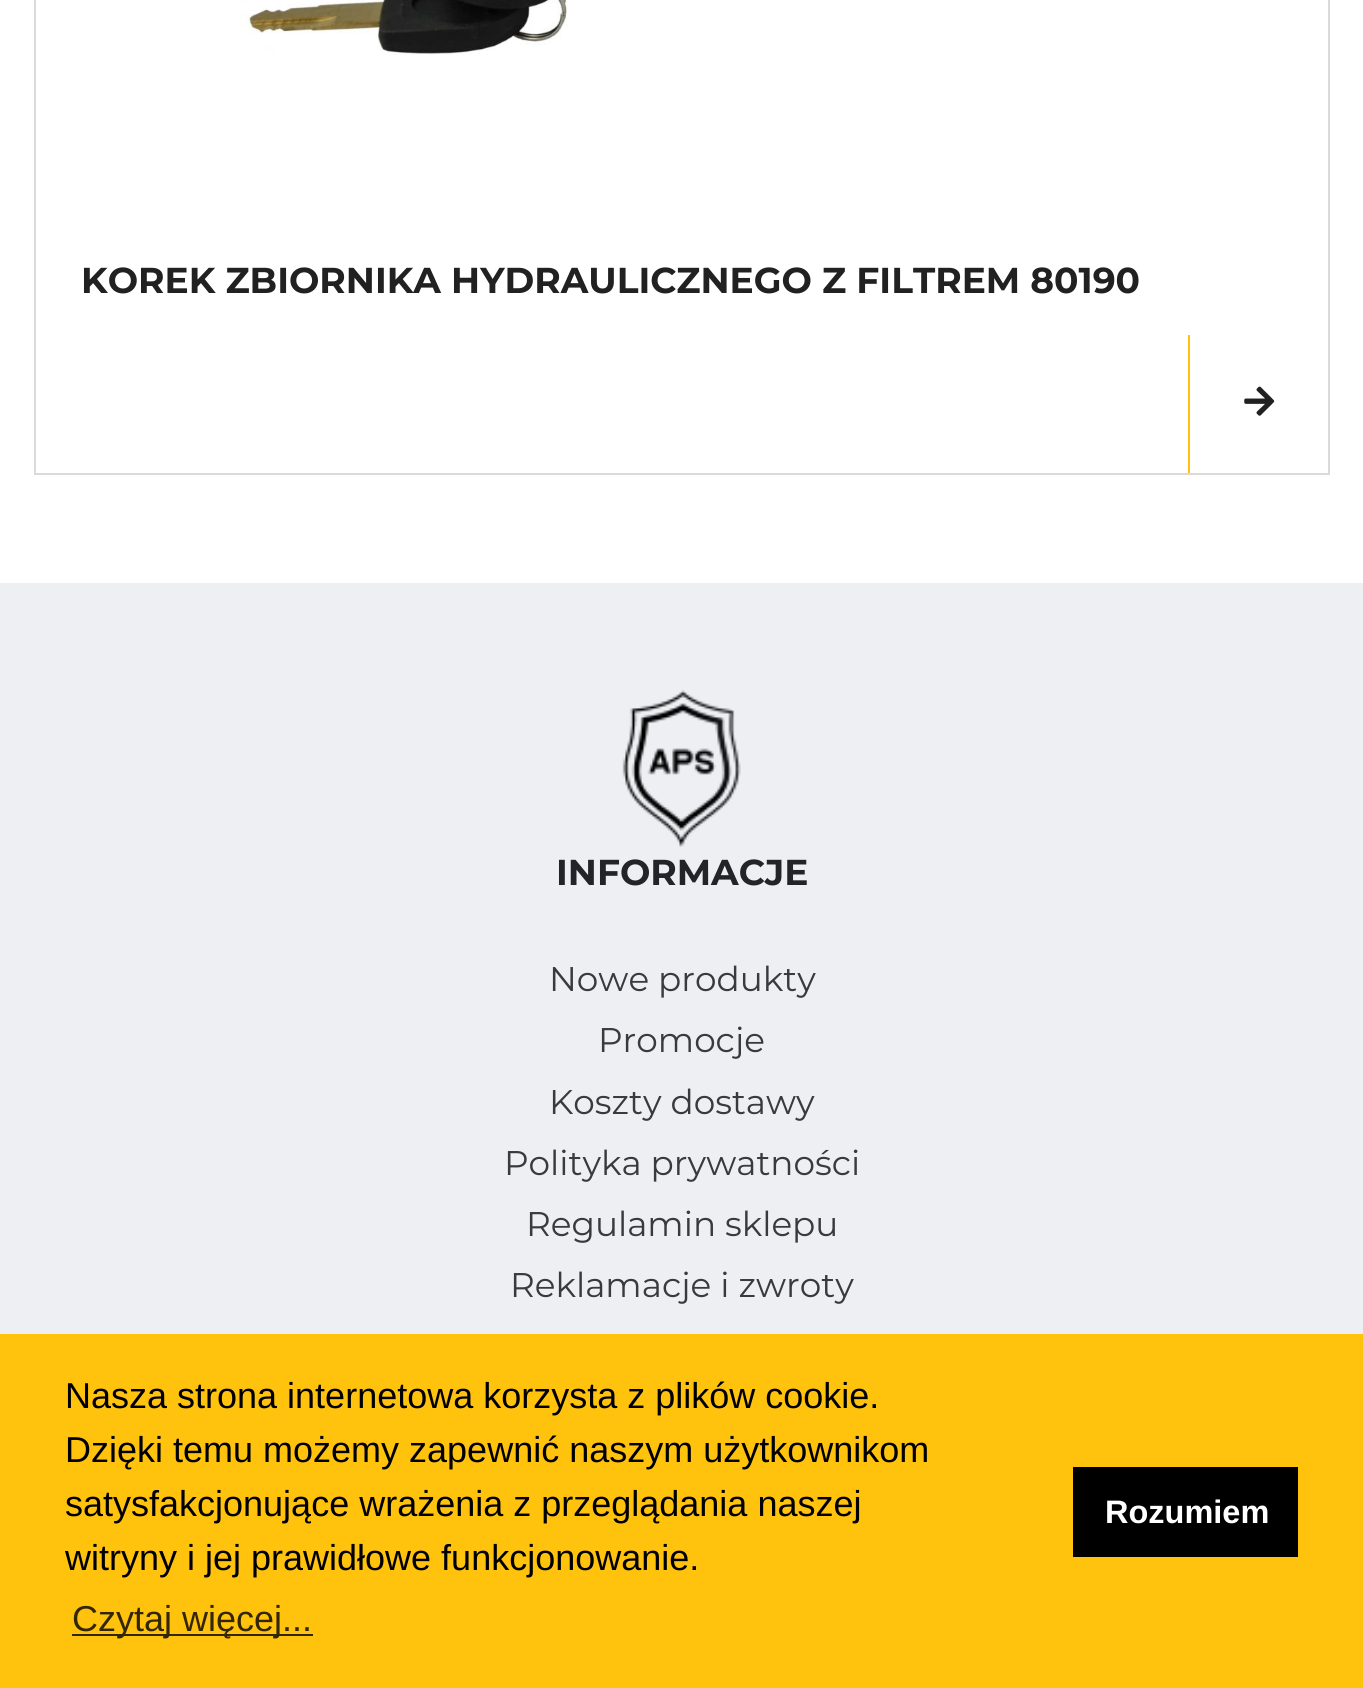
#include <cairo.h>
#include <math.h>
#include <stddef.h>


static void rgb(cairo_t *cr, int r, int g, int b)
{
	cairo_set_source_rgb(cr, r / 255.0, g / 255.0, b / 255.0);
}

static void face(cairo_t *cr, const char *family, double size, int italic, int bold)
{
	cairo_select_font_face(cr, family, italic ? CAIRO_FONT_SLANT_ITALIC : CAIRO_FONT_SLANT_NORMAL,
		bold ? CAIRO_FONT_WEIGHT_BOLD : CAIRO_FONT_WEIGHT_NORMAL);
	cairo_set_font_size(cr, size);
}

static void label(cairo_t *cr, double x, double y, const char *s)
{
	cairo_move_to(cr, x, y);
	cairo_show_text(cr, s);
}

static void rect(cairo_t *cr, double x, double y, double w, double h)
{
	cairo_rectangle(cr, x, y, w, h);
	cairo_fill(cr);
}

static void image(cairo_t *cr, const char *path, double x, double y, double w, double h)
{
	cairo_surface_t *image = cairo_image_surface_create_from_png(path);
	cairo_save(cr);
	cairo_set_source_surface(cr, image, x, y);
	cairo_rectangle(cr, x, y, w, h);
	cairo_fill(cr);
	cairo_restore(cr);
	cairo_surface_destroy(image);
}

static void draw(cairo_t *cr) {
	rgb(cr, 255, 255, 255);
	cairo_paint(cr);
	cairo_rectangle(cr, 35, -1, 1294, 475);
	rgb(cr, 218, 218, 218);
	cairo_stroke(cr);
	image(cr, "image0.png", 240, 0, 328, 55);
	face(cr, "Montserrat", 36, 0, 1);
	rgb(cr, 33, 33, 33);
	label(cr, 81, 293, "KOREK ZBIORNIKA HYDRAULICZNEGO Z FILTREM 80190");
	rgb(cr, 255, 194, 13);
	rect(cr, 1188, 335, 2, 138);
	image(cr, "image1.png", 1244, 386, 31, 30);
	rgb(cr, 237, 239, 242);
	rect(cr, 0, 583, 1363, 751);
	image(cr, "image2.png", 622, 690, 119, 157);
	rgb(cr, 33, 37, 41);
	label(cr, 556, 885, "INFORMACJE");
	face(cr, "Montserrat", 34.25, 0, 0);
	rgb(cr, 56, 58, 63);
	label(cr, 549, 991, "Nowe produkty");
	label(cr, 598, 1052, "Promocje");
	label(cr, 549, 1114, "Koszty dostawy");
	label(cr, 504, 1175, "Polityka prywatności");
	label(cr, 526, 1236, "Regulamin sklepu");
	label(cr, 510, 1297, "Reklamacje i zwroty");
	rgb(cr, 255, 194, 13);
	rect(cr, 0, 1334, 1363, 354);
	face(cr, "Liberation Sans", 36, 0, 0);
	rgb(cr, 0, 0, 0);
	label(cr, 65, 1408, "Nasza strona internetowa korzysta z plików cookie.");
	label(cr, 65, 1462, "Dzięki temu możemy zapewnić naszym użytkownikom");
	label(cr, 65, 1516, "satysfakcjonujące wrażenia z przeglądania naszej");
	label(cr, 65, 1570, "witryny i jej prawidłowe funkcjonowanie.");
	rgb(cr, 51, 39, 3);
	rect(cr, 72, 1634, 241, 2);
	label(cr, 72, 1631, "Czytaj więcej...");
	rgb(cr, 0, 0, 0);
	rect(cr, 1073, 1467, 225, 90);
	face(cr, "Liberation Sans", 32.5, 0, 1);
	rgb(cr, 255, 255, 255);
	label(cr, 1105, 1523, "Rozumiem");
}

int main(void) {
	cairo_surface_t *surface = cairo_image_surface_create(CAIRO_FORMAT_RGB24, 1363, 1688);
	cairo_t *cr = cairo_create(surface);
	cairo_font_options_t *options = cairo_font_options_create();
	cairo_font_options_set_hint_metrics(options, CAIRO_HINT_METRICS_OFF);
	cairo_font_options_set_hint_style(options, CAIRO_HINT_STYLE_NONE);
	cairo_set_font_options(cr, options);
	cairo_set_miter_limit(cr, 4);
	draw(cr);
	cairo_surface_write_to_png(surface, "render.png");
	cairo_font_options_destroy(options);
	cairo_destroy(cr);
	cairo_surface_destroy(surface);
	return 0;
}
